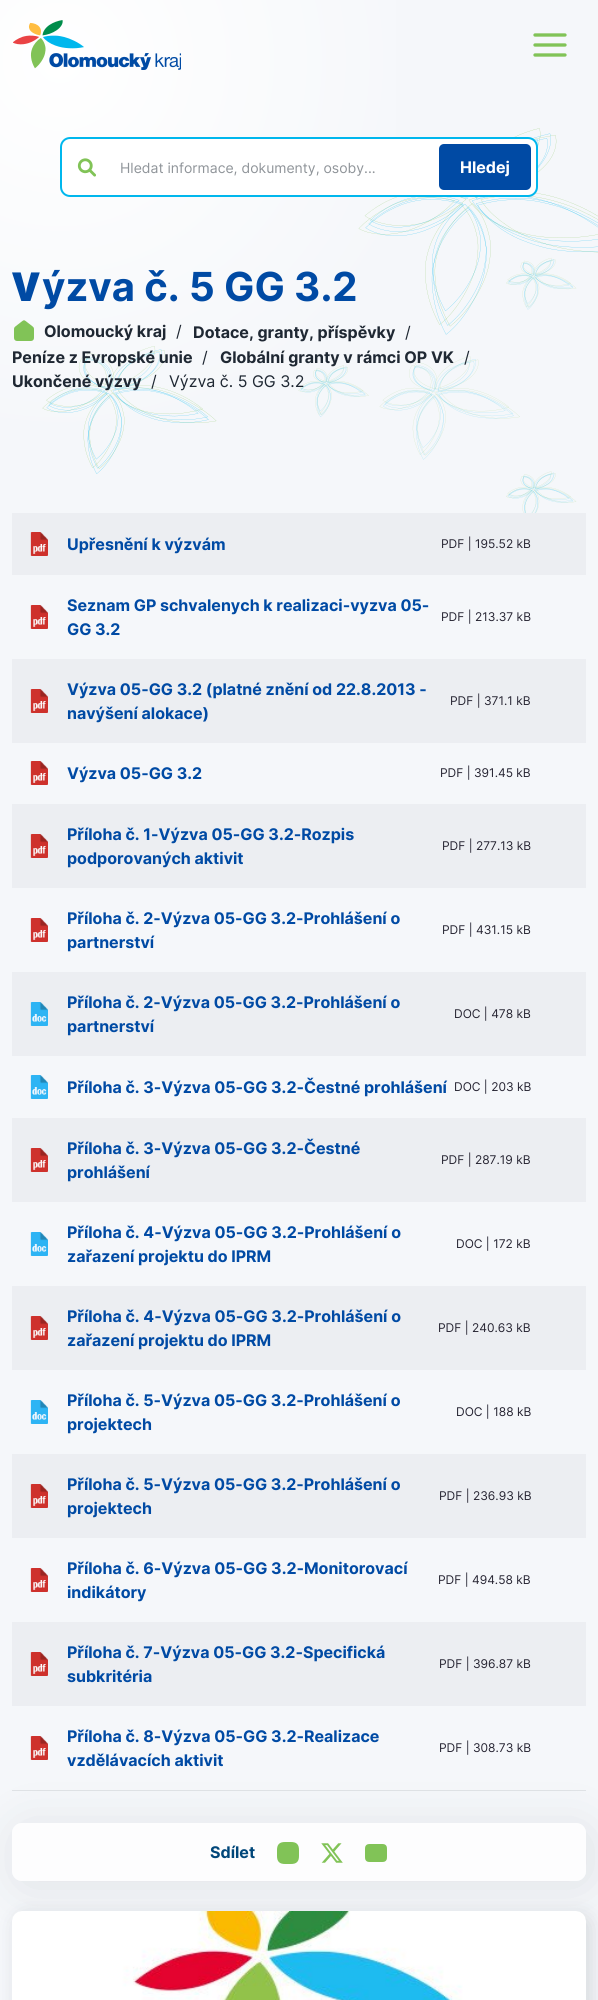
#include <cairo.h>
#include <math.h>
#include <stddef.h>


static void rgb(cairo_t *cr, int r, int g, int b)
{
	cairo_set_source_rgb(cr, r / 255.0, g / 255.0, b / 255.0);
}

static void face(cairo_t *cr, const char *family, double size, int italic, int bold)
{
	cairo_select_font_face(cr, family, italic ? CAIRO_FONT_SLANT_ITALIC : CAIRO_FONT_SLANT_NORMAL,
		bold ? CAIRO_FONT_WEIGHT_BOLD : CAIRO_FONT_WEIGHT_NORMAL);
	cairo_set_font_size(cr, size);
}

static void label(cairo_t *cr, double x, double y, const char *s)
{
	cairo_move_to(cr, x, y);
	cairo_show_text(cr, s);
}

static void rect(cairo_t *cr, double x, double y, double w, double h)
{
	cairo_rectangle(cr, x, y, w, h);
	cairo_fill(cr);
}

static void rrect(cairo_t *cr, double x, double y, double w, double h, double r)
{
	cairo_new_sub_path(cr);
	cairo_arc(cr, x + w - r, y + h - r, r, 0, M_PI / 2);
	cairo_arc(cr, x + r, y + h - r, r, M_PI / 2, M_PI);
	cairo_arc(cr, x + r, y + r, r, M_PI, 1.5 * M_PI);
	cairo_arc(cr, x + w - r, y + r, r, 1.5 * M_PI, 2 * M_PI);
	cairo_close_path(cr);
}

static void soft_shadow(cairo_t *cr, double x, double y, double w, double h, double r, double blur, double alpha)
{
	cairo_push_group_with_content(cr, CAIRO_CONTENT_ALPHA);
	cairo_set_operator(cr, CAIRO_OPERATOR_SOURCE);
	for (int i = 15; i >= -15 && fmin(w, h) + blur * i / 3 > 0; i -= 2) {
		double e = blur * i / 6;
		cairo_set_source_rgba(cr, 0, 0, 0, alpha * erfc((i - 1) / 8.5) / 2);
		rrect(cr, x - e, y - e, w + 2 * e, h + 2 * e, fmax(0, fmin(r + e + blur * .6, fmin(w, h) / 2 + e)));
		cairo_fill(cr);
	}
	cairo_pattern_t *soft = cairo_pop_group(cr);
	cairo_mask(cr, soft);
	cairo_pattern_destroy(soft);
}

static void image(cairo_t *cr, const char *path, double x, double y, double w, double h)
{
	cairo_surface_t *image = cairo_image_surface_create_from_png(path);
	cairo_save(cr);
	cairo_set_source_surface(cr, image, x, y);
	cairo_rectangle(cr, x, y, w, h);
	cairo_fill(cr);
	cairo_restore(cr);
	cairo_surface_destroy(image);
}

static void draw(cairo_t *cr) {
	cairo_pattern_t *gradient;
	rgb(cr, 245, 247, 250);
	cairo_paint(cr);
	image(cr, "image0.png", 42, 128, 556, 385);
	gradient = cairo_pattern_create_radial(60, 60, 0, 60, 60, 761);
	cairo_pattern_add_color_stop_rgba(gradient, 0, 1, 1, 1, 1);
	cairo_pattern_add_color_stop_rgba(gradient, 0.5, 1, 1, 1, 0);
	cairo_set_source(cr, gradient);
	cairo_pattern_destroy(gradient);
	rect(cr, 0, 0, 396, 428);
	image(cr, "image1.png", 13, 20, 168, 50);
	cairo_new_path(cr);
	cairo_move_to(cr, 535, 45);
	cairo_line_to(cr, 565, 45);
	cairo_move_to(cr, 535, 35);
	cairo_line_to(cr, 565, 35);
	cairo_move_to(cr, 535, 55);
	cairo_line_to(cr, 565, 55);
	rgb(cr, 129, 195, 87);
	cairo_set_line_width(cr, 3.3);
	cairo_set_line_cap(cr, CAIRO_LINE_CAP_ROUND);
	cairo_set_line_join(cr, CAIRO_LINE_JOIN_ROUND);
	cairo_stroke(cr);
	rgb(cr, 255, 255, 255);
	rrect(cr, 61, 138, 476, 58, 9);
	cairo_fill_preserve(cr);
	rgb(cr, 0, 183, 237);
	cairo_set_line_width(cr, 2);
	cairo_set_line_cap(cr, CAIRO_LINE_CAP_BUTT);
	cairo_set_line_join(cr, CAIRO_LINE_JOIN_MITER);
	cairo_stroke(cr);
	image(cr, "image2.png", 77, 158, 19, 19);
	face(cr, "Inter", 14, 0, 0);
	rgb(cr, 143, 148, 153);
	label(cr, 120, 173, "Hledat informace, dokumenty, osoby...");
	rgb(cr, 0, 74, 164);
	rrect(cr, 439, 144, 92, 46, 5);
	cairo_fill(cr);
	face(cr, "Inter", 16, 0, 1);
	rgb(cr, 255, 255, 255);
	label(cr, 460, 173, "Hledej");
	face(cr, "Noto Sans Black", 40, 0, 0);
	rgb(cr, 0, 74, 164);
	label(cr, 12, 301, "V");
	face(cr, "Inter", 40, 0, 1);
	label(cr, 42, 301, "ýzva č. 5 GG 3.2");
	image(cr, "image3.png", 14, 320, 20, 21);
	face(cr, "Inter", 16, 0, 1);
	rgb(cr, 31, 40, 51);
	label(cr, 44, 337, "Olomoucký kraj");
	face(cr, "Inter", 16, 0, 0);
	label(cr, 176, 337, "/");
	face(cr, "Inter", 16, 0, 1);
	label(cr, 193, 338, "Dotace, granty, příspěvky");
	face(cr, "Inter", 16, 0, 0);
	label(cr, 405, 338, "/");
	face(cr, "Inter", 16, 0, 1);
	label(cr, 12, 363, "Peníze z Evropské unie");
	face(cr, "Inter", 16, 0, 0);
	label(cr, 202, 363, "/");
	face(cr, "Inter", 16, 0, 1);
	label(cr, 220, 363, "Globální granty v rámci OP VK");
	face(cr, "Inter", 16, 0, 0);
	label(cr, 464, 363, "/");
	face(cr, "Inter", 16, 0, 1);
	label(cr, 12, 387, "Ukončené výzvy");
	face(cr, "Inter", 16, 0, 0);
	label(cr, 151, 387, "/");
	label(cr, 169, 387, "Výzva č. 5 GG 3.2");
	rgb(cr, 236, 238, 242);
	rect(cr, 12, 513, 574, 62);
	image(cr, "image4.png", 30, 532, 18, 24);
	face(cr, "Inter", 16, 0, 1);
	rgb(cr, 0, 74, 164);
	label(cr, 67, 550, "Upřesnění k výzvám");
	face(cr, "Inter", 12, 0, 0);
	rgb(cr, 38, 36, 50);
	label(cr, 441, 548, "PDF | 195.52 kB");
	image(cr, "image5.png", 30, 605, 18, 24);
	face(cr, "Inter", 16, 0, 1);
	rgb(cr, 0, 74, 164);
	label(cr, 67, 611, "Seznam GP schvalenych k realizaci-vyzva 05-");
	label(cr, 67, 635, "GG 3.2");
	face(cr, "Inter", 12, 0, 0);
	rgb(cr, 38, 36, 50);
	label(cr, 441, 621, "PDF | 213.37 kB");
	rgb(cr, 236, 238, 242);
	rect(cr, 12, 659, 574, 84);
	image(cr, "image4.png", 30, 689, 18, 24);
	face(cr, "Inter", 16, 0, 1);
	rgb(cr, 0, 74, 164);
	label(cr, 67, 695, "Výzva 05-GG 3.2 (platné znění od 22.8.2013 -");
	label(cr, 67, 719, "navýšení alokace)");
	face(cr, "Inter", 12, 0, 0);
	rgb(cr, 38, 36, 50);
	label(cr, 450, 705, "PDF | 371.1 kB");
	image(cr, "image5.png", 30, 761, 18, 24);
	face(cr, "Inter", 16, 0, 1);
	rgb(cr, 0, 74, 164);
	label(cr, 67, 779, "Výzva 05-GG 3.2");
	face(cr, "Inter", 12, 0, 0);
	rgb(cr, 38, 36, 50);
	label(cr, 440, 777, "PDF | 391.45 kB");
	rgb(cr, 236, 238, 242);
	rect(cr, 12, 804, 574, 84);
	image(cr, "image4.png", 30, 834, 18, 24);
	face(cr, "Inter", 16, 0, 1);
	rgb(cr, 0, 74, 164);
	label(cr, 67, 840, "Příloha č. 1-Výzva 05-GG 3.2-Rozpis");
	label(cr, 67, 864, "podporovaných aktivit");
	face(cr, "Inter", 12, 0, 0);
	rgb(cr, 38, 36, 50);
	label(cr, 442, 850, "PDF | 277.13 kB");
	image(cr, "image5.png", 30, 918, 18, 24);
	face(cr, "Inter", 16, 0, 1);
	rgb(cr, 0, 74, 164);
	label(cr, 67, 924, "Příloha č. 2-Výzva 05-GG 3.2-Prohlášení o");
	label(cr, 67, 948, "partnerství");
	face(cr, "Inter", 12, 0, 0);
	rgb(cr, 38, 36, 50);
	label(cr, 442, 934, "PDF | 431.15 kB");
	rgb(cr, 236, 238, 242);
	rect(cr, 12, 972, 574, 84);
	image(cr, "image6.png", 30, 1002, 18, 24);
	face(cr, "Inter", 16, 0, 1);
	rgb(cr, 0, 74, 164);
	label(cr, 67, 1008, "Příloha č. 2-Výzva 05-GG 3.2-Prohlášení o");
	label(cr, 67, 1032, "partnerství");
	face(cr, "Inter", 12, 0, 0);
	rgb(cr, 38, 36, 50);
	label(cr, 454, 1018, "DOC | 478 kB");
	image(cr, "image7.png", 30, 1075, 18, 24);
	face(cr, "Inter", 16, 0, 1);
	rgb(cr, 0, 74, 164);
	label(cr, 67, 1093, "Příloha č. 3-Výzva 05-GG 3.2-Čestné prohlášení");
	face(cr, "Inter", 12, 0, 0);
	rgb(cr, 38, 36, 50);
	label(cr, 454, 1091, "DOC | 203 kB");
	rgb(cr, 236, 238, 242);
	rect(cr, 12, 1118, 574, 84);
	image(cr, "image4.png", 30, 1148, 18, 24);
	face(cr, "Inter", 16, 0, 1);
	rgb(cr, 0, 74, 164);
	label(cr, 67, 1154, "Příloha č. 3-Výzva 05-GG 3.2-Čestné");
	label(cr, 67, 1178, "prohlášení");
	face(cr, "Inter", 12, 0, 0);
	rgb(cr, 38, 36, 50);
	label(cr, 441, 1164, "PDF | 287.19 kB");
	image(cr, "image7.png", 30, 1232, 18, 24);
	face(cr, "Inter", 16, 0, 1);
	rgb(cr, 0, 74, 164);
	label(cr, 67, 1238, "Příloha č. 4-Výzva 05-GG 3.2-Prohlášení o");
	label(cr, 67, 1262, "zařazení projektu do IPRM");
	face(cr, "Inter", 12, 0, 0);
	rgb(cr, 38, 36, 50);
	label(cr, 456, 1248, "DOC | 172 kB");
	rgb(cr, 236, 238, 242);
	rect(cr, 12, 1286, 574, 84);
	image(cr, "image4.png", 30, 1316, 18, 24);
	face(cr, "Inter", 16, 0, 1);
	rgb(cr, 0, 74, 164);
	label(cr, 67, 1322, "Příloha č. 4-Výzva 05-GG 3.2-Prohlášení o");
	label(cr, 67, 1346, "zařazení projektu do IPRM");
	face(cr, "Inter", 12, 0, 0);
	rgb(cr, 38, 36, 50);
	label(cr, 438, 1332, "PDF | 240.63 kB");
	image(cr, "image7.png", 30, 1400, 18, 24);
	face(cr, "Inter", 16, 0, 1);
	rgb(cr, 0, 74, 164);
	label(cr, 67, 1406, "Příloha č. 5-Výzva 05-GG 3.2-Prohlášení o");
	label(cr, 67, 1430, "projektech");
	face(cr, "Inter", 12, 0, 0);
	rgb(cr, 38, 36, 50);
	label(cr, 456, 1416, "DOC | 188 kB");
	rgb(cr, 236, 238, 242);
	rect(cr, 12, 1454, 574, 84);
	image(cr, "image4.png", 30, 1484, 18, 24);
	face(cr, "Inter", 16, 0, 1);
	rgb(cr, 0, 74, 164);
	label(cr, 67, 1490, "Příloha č. 5-Výzva 05-GG 3.2-Prohlášení o");
	label(cr, 67, 1514, "projektech");
	face(cr, "Inter", 12, 0, 0);
	rgb(cr, 38, 36, 50);
	label(cr, 439, 1500, "PDF | 236.93 kB");
	image(cr, "image5.png", 30, 1568, 18, 24);
	face(cr, "Inter", 16, 0, 1);
	rgb(cr, 0, 74, 164);
	label(cr, 67, 1574, "Příloha č. 6-Výzva 05-GG 3.2-Monitorovací");
	label(cr, 67, 1598, "indikátory");
	face(cr, "Inter", 12, 0, 0);
	rgb(cr, 38, 36, 50);
	label(cr, 438, 1584, "PDF | 494.58 kB");
	rgb(cr, 236, 238, 242);
	rect(cr, 12, 1622, 574, 84);
	image(cr, "image4.png", 30, 1652, 18, 24);
	face(cr, "Inter", 16, 0, 1);
	rgb(cr, 0, 74, 164);
	label(cr, 67, 1658, "Příloha č. 7-Výzva 05-GG 3.2-Specifická");
	label(cr, 67, 1682, "subkritéria");
	face(cr, "Inter", 12, 0, 0);
	rgb(cr, 38, 36, 50);
	label(cr, 439, 1668, "PDF | 396.87 kB");
	rgb(cr, 224, 227, 230);
	rect(cr, 12, 1790, 574, 1);
	image(cr, "image5.png", 30, 1736, 18, 24);
	face(cr, "Inter", 16, 0, 1);
	rgb(cr, 0, 74, 164);
	label(cr, 67, 1742, "Příloha č. 8-Výzva 05-GG 3.2-Realizace");
	label(cr, 67, 1766, "vzdělávacích aktivit");
	face(cr, "Inter", 12, 0, 0);
	rgb(cr, 38, 36, 50);
	label(cr, 439, 1752, "PDF | 308.73 kB");
	cairo_save(cr);
	cairo_set_fill_rule(cr, CAIRO_FILL_RULE_EVEN_ODD);
	cairo_new_path(cr);
	cairo_move_to(cr, 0, 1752);
	cairo_line_to(cr, 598, 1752);
	cairo_line_to(cr, 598, 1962);
	cairo_line_to(cr, 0, 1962);
	cairo_close_path(cr);
	cairo_move_to(cr, 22, 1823);
	cairo_line_to(cr, 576, 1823);
	cairo_curve_to(cr, 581.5, 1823, 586, 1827.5, 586, 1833);
	cairo_line_to(cr, 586, 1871);
	cairo_curve_to(cr, 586, 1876.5, 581.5, 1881, 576, 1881);
	cairo_line_to(cr, 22, 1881);
	cairo_curve_to(cr, 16.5, 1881, 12, 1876.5, 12, 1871);
	cairo_line_to(cr, 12, 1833);
	cairo_curve_to(cr, 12, 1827.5, 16.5, 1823, 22, 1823);
	cairo_close_path(cr);
	cairo_clip(cr);
	rgb(cr, 31, 40, 51);
	soft_shadow(cr, 17, 1828, 574, 58, 10, 25, 0.1);
	cairo_restore(cr);
	cairo_set_source_rgba(cr, 1, 1, 1, 0.8);
	rrect(cr, 12, 1823, 574, 58, 10);
	cairo_fill(cr);
	face(cr, "Inter", 16, 0, 1);
	rgb(cr, 0, 70, 121);
	label(cr, 210, 1858, "Sdílet");
	image(cr, "image8.png", 277, 1842, 22, 22);
	image(cr, "image9.png", 321, 1843, 22, 20);
	image(cr, "image10.png", 365, 1844, 22, 18);
	rgb(cr, 31, 40, 51);
	soft_shadow(cr, 17, 1916, 574, 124, 10, 10, 0.15);
	image(cr, "image11.png", 12, 1911, 574, 89);
}

int main(void) {
	cairo_surface_t *surface = cairo_image_surface_create(CAIRO_FORMAT_RGB24, 598, 2000);
	cairo_t *cr = cairo_create(surface);
	cairo_font_options_t *options = cairo_font_options_create();
	cairo_font_options_set_hint_metrics(options, CAIRO_HINT_METRICS_OFF);
	cairo_font_options_set_hint_style(options, CAIRO_HINT_STYLE_NONE);
	cairo_set_font_options(cr, options);
	cairo_set_miter_limit(cr, 4);
	draw(cr);
	cairo_surface_write_to_png(surface, "render.png");
	cairo_font_options_destroy(options);
	cairo_destroy(cr);
	cairo_surface_destroy(surface);
	return 0;
}
